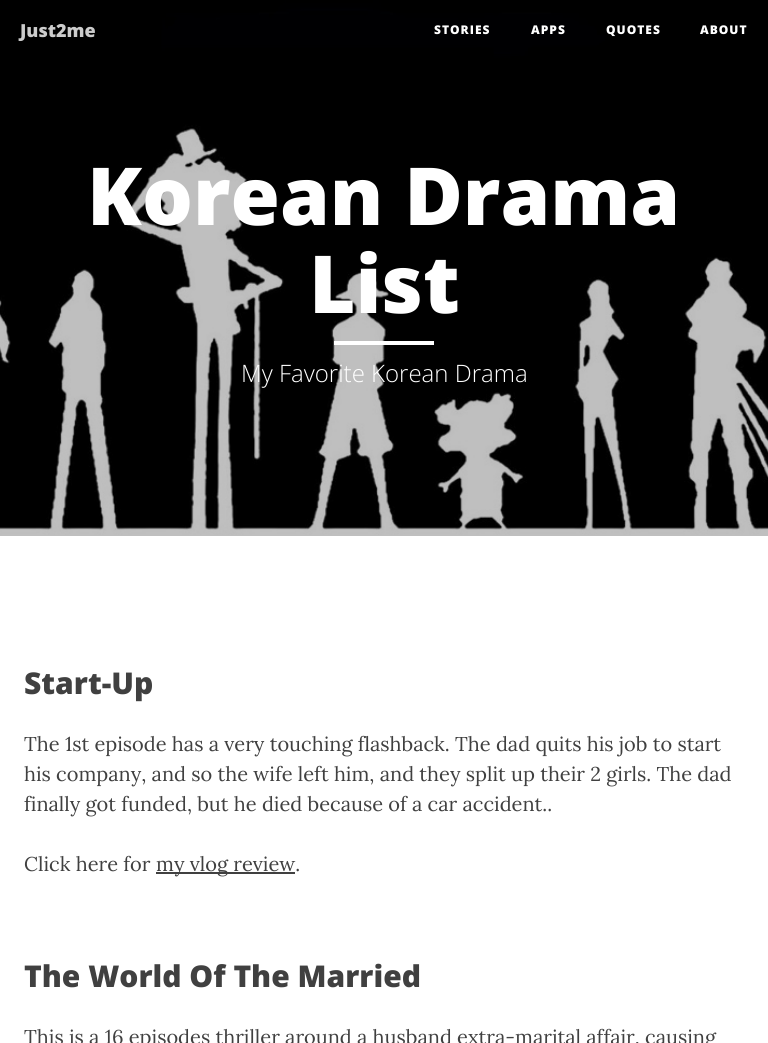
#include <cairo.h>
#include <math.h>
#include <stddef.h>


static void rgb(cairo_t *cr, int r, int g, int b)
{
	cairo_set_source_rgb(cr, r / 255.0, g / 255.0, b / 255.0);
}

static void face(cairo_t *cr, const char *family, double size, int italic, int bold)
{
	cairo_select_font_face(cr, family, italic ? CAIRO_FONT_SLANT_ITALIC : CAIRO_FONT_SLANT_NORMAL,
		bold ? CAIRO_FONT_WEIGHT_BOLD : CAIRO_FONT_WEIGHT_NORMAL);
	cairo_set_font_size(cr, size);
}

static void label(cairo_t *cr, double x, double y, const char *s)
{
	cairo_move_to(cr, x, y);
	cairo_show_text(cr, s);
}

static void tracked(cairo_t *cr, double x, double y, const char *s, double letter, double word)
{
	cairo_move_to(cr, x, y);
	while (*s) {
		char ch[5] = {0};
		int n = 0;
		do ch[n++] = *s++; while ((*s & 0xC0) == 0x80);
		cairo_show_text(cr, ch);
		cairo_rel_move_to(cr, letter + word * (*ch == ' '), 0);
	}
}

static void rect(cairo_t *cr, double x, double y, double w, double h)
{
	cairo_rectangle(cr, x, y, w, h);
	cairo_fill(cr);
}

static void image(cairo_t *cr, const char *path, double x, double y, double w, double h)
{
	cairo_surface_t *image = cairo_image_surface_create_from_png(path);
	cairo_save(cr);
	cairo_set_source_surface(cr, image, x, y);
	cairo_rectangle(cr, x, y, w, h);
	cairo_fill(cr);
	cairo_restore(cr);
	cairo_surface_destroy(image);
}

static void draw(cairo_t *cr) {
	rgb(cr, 255, 255, 255);
	cairo_paint(cr);
	image(cr, "image0.png", 0, 0, 768, 536);
	face(cr, "Open Sans ExtraBold", 18, 0, 0);
	rgb(cr, 204, 204, 204);
	label(cr, 20, 37, "Just2me");
	face(cr, "Open Sans ExtraBold", 12, 0, 0);
	rgb(cr, 255, 255, 255);
	tracked(cr, 434, 34, "STORIES", 1, 0);
	tracked(cr, 531, 34, "APPS", 1, 0);
	tracked(cr, 606, 34, "QUOTES", 1, 0);
	tracked(cr, 700, 34, "ABOUT", 1, 0);
	face(cr, "Open Sans ExtraBold", 80, 0, 0);
	label(cr, 87, 225, "Korean Drama");
	label(cr, 309, 313, "List");
	rect(cr, 334, 341, 100, 4);
	face(cr, "Open Sans Light", 24, 0, 0);
	label(cr, 241, 382, "My Favorite Korean Drama");
	face(cr, "Open Sans ExtraBold", 30, 0, 0);
	rgb(cr, 64, 64, 64);
	label(cr, 24, 694, "Start-Up");
	face(cr, "Lora", 20, 0, 0);
	label(cr, 24, 751, "The 1st episode has a very touching flashback. The dad quits his job to start");
	label(cr, 24, 781, "his company, and so the wife left him, and they split up their 2 girls. The dad");
	label(cr, 24, 811, "finally got funded, but he died because of a car accident..");
	label(cr, 24, 871, "Click here for");
	rect(cr, 156, 872, 139, 2);
	label(cr, 156, 871, "my vlog review.");
	face(cr, "Open Sans ExtraBold", 30, 0, 0);
	label(cr, 24, 987, "The World Of The Married");
	face(cr, "Lora", 20, 0, 0);
	label(cr, 24, 1044, "This is a 16 episodes thriller around a husband extra-marital affair, causing");
}

int main(void) {
	cairo_surface_t *surface = cairo_image_surface_create(CAIRO_FORMAT_RGB24, 768, 1043);
	cairo_t *cr = cairo_create(surface);
	cairo_font_options_t *options = cairo_font_options_create();
	cairo_font_options_set_hint_metrics(options, CAIRO_HINT_METRICS_OFF);
	cairo_font_options_set_hint_style(options, CAIRO_HINT_STYLE_NONE);
	cairo_set_font_options(cr, options);
	cairo_set_miter_limit(cr, 4);
	draw(cr);
	cairo_surface_write_to_png(surface, "render.png");
	cairo_font_options_destroy(options);
	cairo_destroy(cr);
	cairo_surface_destroy(surface);
	return 0;
}
